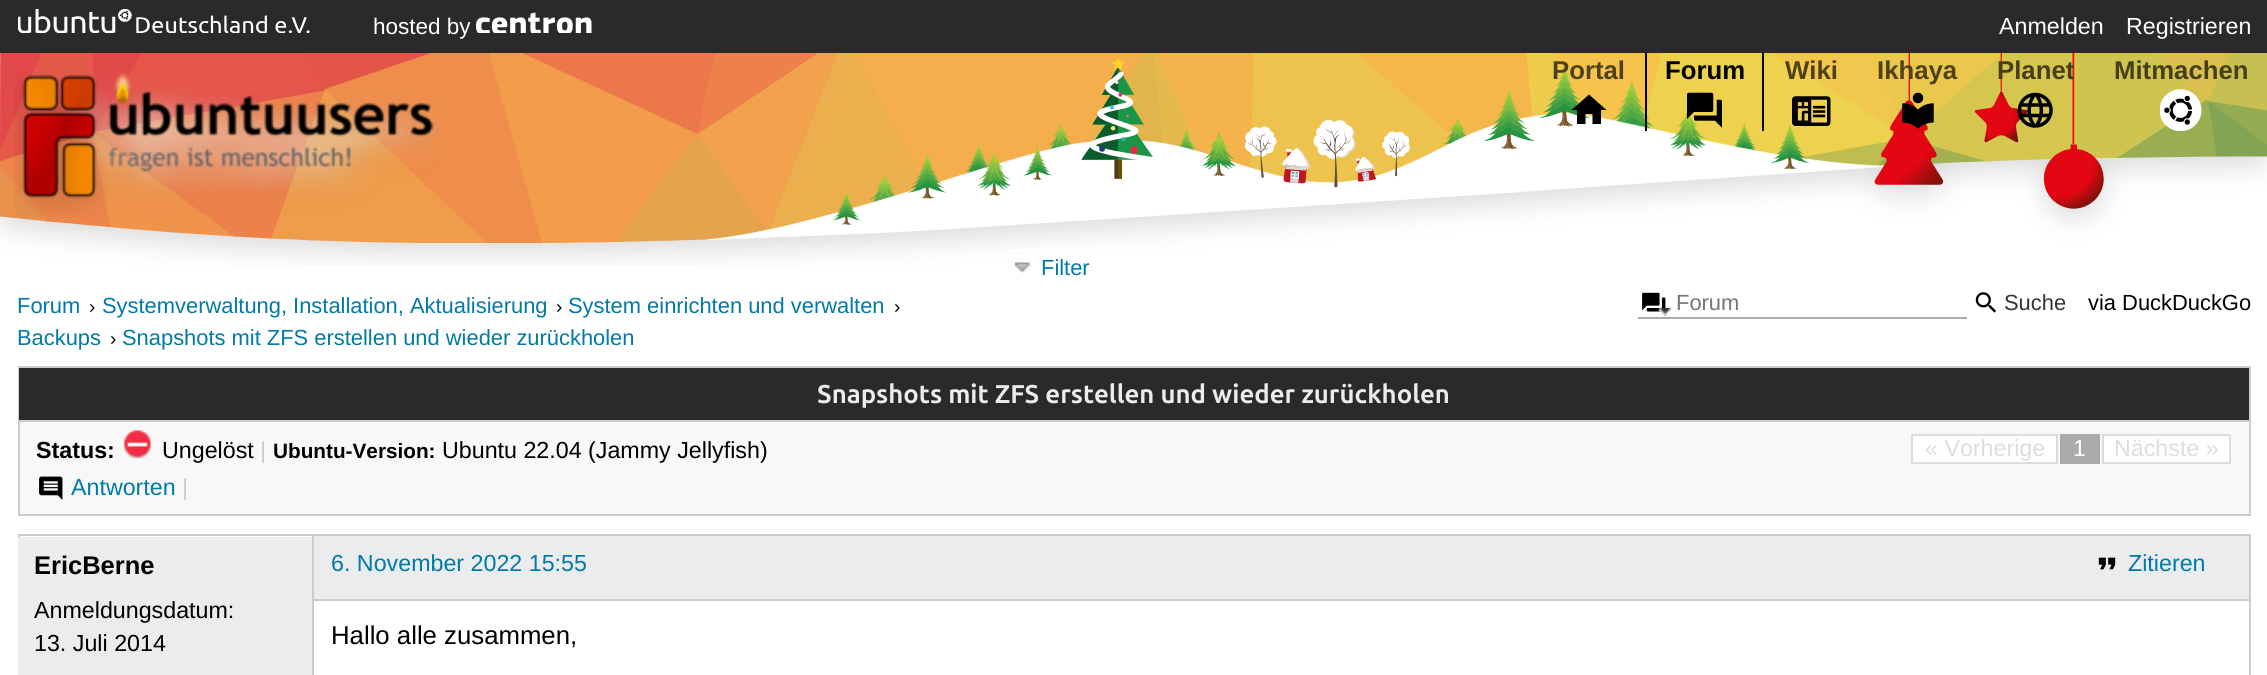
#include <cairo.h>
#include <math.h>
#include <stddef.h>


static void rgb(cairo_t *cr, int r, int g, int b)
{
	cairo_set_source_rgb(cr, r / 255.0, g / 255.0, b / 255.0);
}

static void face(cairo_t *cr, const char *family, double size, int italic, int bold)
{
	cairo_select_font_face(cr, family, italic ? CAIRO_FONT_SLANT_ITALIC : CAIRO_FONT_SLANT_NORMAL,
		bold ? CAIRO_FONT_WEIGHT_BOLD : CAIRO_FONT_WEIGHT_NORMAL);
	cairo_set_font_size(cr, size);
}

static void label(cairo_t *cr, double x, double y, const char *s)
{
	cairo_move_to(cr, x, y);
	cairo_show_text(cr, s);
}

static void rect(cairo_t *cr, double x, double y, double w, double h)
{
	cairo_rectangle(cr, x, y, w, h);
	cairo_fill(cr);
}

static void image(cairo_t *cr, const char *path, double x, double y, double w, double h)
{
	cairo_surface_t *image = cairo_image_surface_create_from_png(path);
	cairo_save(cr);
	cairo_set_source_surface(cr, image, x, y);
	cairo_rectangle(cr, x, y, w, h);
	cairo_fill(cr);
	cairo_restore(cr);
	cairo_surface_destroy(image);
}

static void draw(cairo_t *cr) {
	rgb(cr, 255, 255, 255);
	cairo_paint(cr);
	rgb(cr, 43, 41, 41);
	rect(cr, 0, 0, 2267, 53);
	image(cr, "image0.png", 18, 9, 292, 24);
	face(cr, "Liberation Sans", 22.5, 0, 0);
	rgb(cr, 255, 255, 255);
	label(cr, 373, 34, "hosted by");
	image(cr, "image1.png", 476, 12, 116, 21);
	face(cr, "Liberation Sans", 23.25, 0, 0);
	label(cr, 1999, 34, "Anmelden");
	label(cr, 2126, 34, "Registrieren");
	image(cr, "image2.png", 0, 53, 2267, 213);
	image(cr, "image3.png", 14, 71, 427, 147);
	face(cr, "Liberation Sans", 25.75, 0, 1);
	rgb(cr, 80, 65, 25);
	label(cr, 1552, 79, "Portal");
	rgb(cr, 0, 0, 0);
	cairo_new_path(cr);
	cairo_move_to(cr, 1585.5, 124);
	cairo_line_to(cr, 1585.5, 114);
	cairo_line_to(cr, 1592.5, 114);
	cairo_line_to(cr, 1592.5, 124);
	cairo_line_to(cr, 1601, 124);
	cairo_line_to(cr, 1601, 110);
	cairo_line_to(cr, 1606.5, 110);
	cairo_line_to(cr, 1589, 94.5);
	cairo_line_to(cr, 1571.5, 110);
	cairo_line_to(cr, 1577, 110);
	cairo_line_to(cr, 1577, 124);
	cairo_close_path(cr);
	cairo_fill(cr);
	rect(cr, 1762, 53, 2, 78);
	rect(cr, 1645, 53, 2, 78);
	label(cr, 1665, 79, "Forum");
	image(cr, "image4.png", 1687, 92, 35, 36);
	rgb(cr, 80, 65, 25);
	label(cr, 1785, 79, "Wiki");
	image(cr, "image5.png", 1792, 96, 39, 30);
	label(cr, 1877, 79, "Ikhaya");
	image(cr, "image6.png", 1902, 92, 32, 37);
	rgb(cr, 71, 63, 25);
	label(cr, 1997, 79, "Planet");
	image(cr, "image7.png", 2017, 92, 36, 36);
	label(cr, 2114, 79, "Mitmachen");
	image(cr, "image8.png", 2160, 89, 42, 42);
	cairo_rectangle(cr, 1009, 251, 422, 39);
	rgb(cr, 255, 255, 255);
	cairo_stroke(cr);
	image(cr, "image9.png", 1015, 262, 16, 11);
	face(cr, "Liberation Sans", 21.9, 0, 0);
	rgb(cr, 0, 122, 166);
	label(cr, 1041, 275, "Filter");
	label(cr, 17, 313, "Forum");
	face(cr, "Liberation Sans", 19, 0, 0);
	rgb(cr, 0, 0, 0);
	label(cr, 89, 313, "›");
	face(cr, "Liberation Sans", 21.9, 0, 0);
	rgb(cr, 0, 122, 166);
	label(cr, 102, 313, "Systemverwaltung, Installation, Aktualisierung");
	face(cr, "Liberation Sans", 19, 0, 0);
	rgb(cr, 0, 0, 0);
	label(cr, 556, 313, "›");
	face(cr, "Liberation Sans", 21.9, 0, 0);
	rgb(cr, 0, 122, 166);
	label(cr, 568, 313, "System einrichten und verwalten");
	face(cr, "Liberation Sans", 19, 0, 0);
	rgb(cr, 0, 0, 0);
	label(cr, 894, 313, "›");
	face(cr, "Liberation Sans", 21.9, 0, 0);
	rgb(cr, 0, 122, 166);
	label(cr, 17, 345, "Backups");
	face(cr, "Liberation Sans", 19, 0, 0);
	rgb(cr, 0, 0, 0);
	label(cr, 110, 345, "›");
	face(cr, "Liberation Sans", 21.9, 0, 0);
	rgb(cr, 0, 122, 166);
	label(cr, 122, 345, "Snapshots mit ZFS erstellen und wieder zurückholen");
	image(cr, "image11.png", 1642, 292, 24, 24);
	image(cr, "image10.png", 1658, 308, 14, 7);
	rgb(cr, 170, 170, 170);
	rect(cr, 1638, 317, 329, 2);
	rgb(cr, 117, 117, 117);
	label(cr, 1676, 310, "Forum");
	image(cr, "image12.png", 1975, 292, 21, 21);
	rgb(cr, 51, 51, 51);
	label(cr, 2004, 310, "Suche");
	rgb(cr, 0, 0, 0);
	label(cr, 2088, 310, "via DuckDuckGo");
	rgb(cr, 248, 248, 248);
	rect(cr, 20, 422, 2229, 92);
	cairo_rectangle(cr, 19, 367, 2231, 148);
	rgb(cr, 204, 204, 204);
	cairo_stroke(cr);
	rgb(cr, 43, 41, 41);
	rect(cr, 19, 368, 2230, 52);
	rgb(cr, 204, 204, 204);
	rect(cr, 19, 420, 2230, 2);
	face(cr, "Ubuntu", 25.75, 0, 1);
	rgb(cr, 234, 236, 238);
	label(cr, 817, 403, "Snapshots mit ZFS erstellen und wieder zurückholen");
	face(cr, "Liberation Sans", 23.25, 0, 1);
	rgb(cr, 0, 0, 0);
	label(cr, 36, 458, "Status:");
	image(cr, "image13.png", 123, 430, 28, 29);
	face(cr, "Liberation Sans", 23.25, 0, 0);
	label(cr, 162, 458, "Ungelöst");
	rgb(cr, 204, 204, 204);
	label(cr, 260, 458, "|");
	face(cr, "Liberation Sans", 20.75, 0, 1);
	rgb(cr, 0, 0, 0);
	label(cr, 273, 458, "Ubuntu-Version:");
	face(cr, "Liberation Sans", 23.25, 0, 0);
	label(cr, 442, 458, "Ubuntu 22.04 (Jammy Jellyfish)");
	rgb(cr, 255, 255, 255);
	cairo_rectangle(cr, 1912, 435, 145, 28);
	cairo_fill_preserve(cr);
	rgb(cr, 221, 221, 221);
	cairo_stroke(cr);
	label(cr, 1925, 456, "« Vorherige");
	rgb(cr, 170, 170, 170);
	rect(cr, 2060, 434, 40, 30);
	rgb(cr, 255, 255, 255);
	label(cr, 2073, 456, "1");
	cairo_rectangle(cr, 2103, 435, 127, 28);
	cairo_fill_preserve(cr);
	rgb(cr, 221, 221, 221);
	cairo_stroke(cr);
	label(cr, 2114, 456, "Nächste »");
	image(cr, "image14.png", 39, 476, 24, 24);
	rgb(cr, 0, 122, 166);
	label(cr, 71, 495, "Antworten");
	rgb(cr, 204, 204, 204);
	label(cr, 182, 495, "|");
	rect(cr, 18, 534, 2233, 2);
	rect(cr, 2249, 534, 2, 141);
	rect(cr, 18, 534, 2, 3);
	rect(cr, 313, 599, 1936, 2);
	rect(cr, 312, 534, 2, 141);
	rgb(cr, 234, 236, 238);
	rect(cr, 18, 537, 294, 138);
	face(cr, "Liberation Sans", 25.5, 0, 1);
	rgb(cr, 0, 0, 0);
	label(cr, 34, 574, "EricBerne");
	face(cr, "Liberation Sans", 23.25, 0, 0);
	label(cr, 34, 618, "Anmeldungsdatum:");
	label(cr, 34, 651, "13. Juli 2014");
	rgb(cr, 234, 236, 238);
	rect(cr, 314, 536, 1935, 63);
	rgb(cr, 0, 122, 166);
	label(cr, 331, 571, "6. November 2022 15:55");
	image(cr, "image15.png", 2098, 557, 18, 13);
	label(cr, 2128, 571, "Zitieren");
	face(cr, "Liberation Sans", 25.75, 0, 0);
	rgb(cr, 0, 0, 0);
	label(cr, 331, 644, "Hallo alle zusammen,");
}

int main(void) {
	cairo_surface_t *surface = cairo_image_surface_create(CAIRO_FORMAT_RGB24, 2267, 675);
	cairo_t *cr = cairo_create(surface);
	cairo_font_options_t *options = cairo_font_options_create();
	cairo_font_options_set_hint_metrics(options, CAIRO_HINT_METRICS_OFF);
	cairo_font_options_set_hint_style(options, CAIRO_HINT_STYLE_NONE);
	cairo_set_font_options(cr, options);
	cairo_set_miter_limit(cr, 4);
	draw(cr);
	cairo_surface_write_to_png(surface, "render.png");
	cairo_font_options_destroy(options);
	cairo_destroy(cr);
	cairo_surface_destroy(surface);
	return 0;
}
